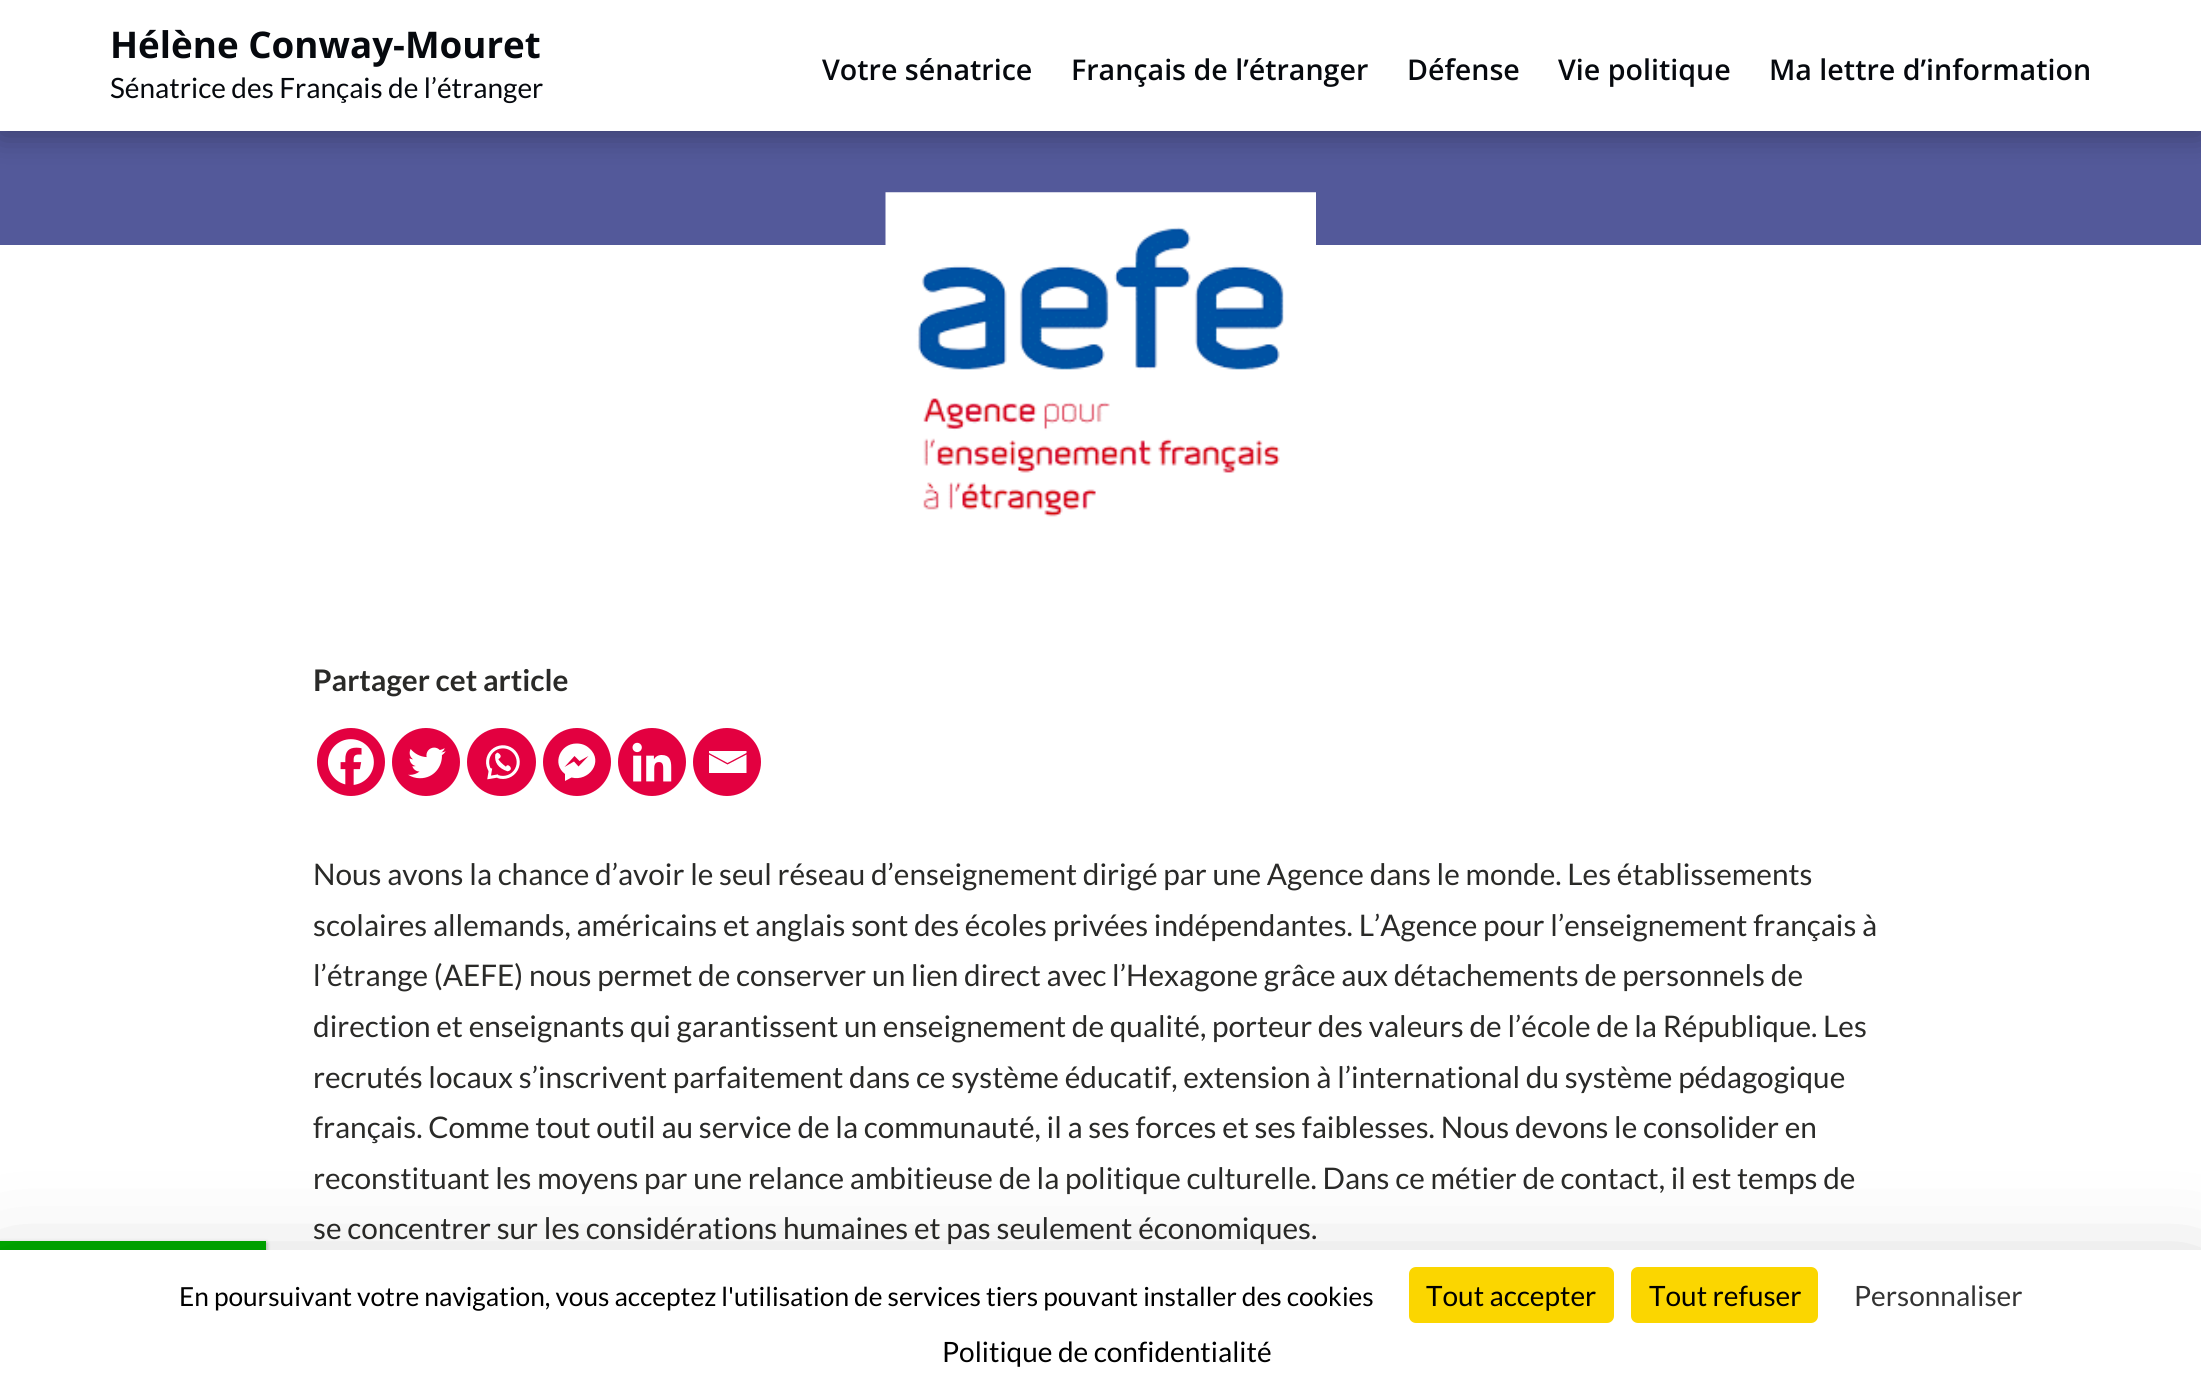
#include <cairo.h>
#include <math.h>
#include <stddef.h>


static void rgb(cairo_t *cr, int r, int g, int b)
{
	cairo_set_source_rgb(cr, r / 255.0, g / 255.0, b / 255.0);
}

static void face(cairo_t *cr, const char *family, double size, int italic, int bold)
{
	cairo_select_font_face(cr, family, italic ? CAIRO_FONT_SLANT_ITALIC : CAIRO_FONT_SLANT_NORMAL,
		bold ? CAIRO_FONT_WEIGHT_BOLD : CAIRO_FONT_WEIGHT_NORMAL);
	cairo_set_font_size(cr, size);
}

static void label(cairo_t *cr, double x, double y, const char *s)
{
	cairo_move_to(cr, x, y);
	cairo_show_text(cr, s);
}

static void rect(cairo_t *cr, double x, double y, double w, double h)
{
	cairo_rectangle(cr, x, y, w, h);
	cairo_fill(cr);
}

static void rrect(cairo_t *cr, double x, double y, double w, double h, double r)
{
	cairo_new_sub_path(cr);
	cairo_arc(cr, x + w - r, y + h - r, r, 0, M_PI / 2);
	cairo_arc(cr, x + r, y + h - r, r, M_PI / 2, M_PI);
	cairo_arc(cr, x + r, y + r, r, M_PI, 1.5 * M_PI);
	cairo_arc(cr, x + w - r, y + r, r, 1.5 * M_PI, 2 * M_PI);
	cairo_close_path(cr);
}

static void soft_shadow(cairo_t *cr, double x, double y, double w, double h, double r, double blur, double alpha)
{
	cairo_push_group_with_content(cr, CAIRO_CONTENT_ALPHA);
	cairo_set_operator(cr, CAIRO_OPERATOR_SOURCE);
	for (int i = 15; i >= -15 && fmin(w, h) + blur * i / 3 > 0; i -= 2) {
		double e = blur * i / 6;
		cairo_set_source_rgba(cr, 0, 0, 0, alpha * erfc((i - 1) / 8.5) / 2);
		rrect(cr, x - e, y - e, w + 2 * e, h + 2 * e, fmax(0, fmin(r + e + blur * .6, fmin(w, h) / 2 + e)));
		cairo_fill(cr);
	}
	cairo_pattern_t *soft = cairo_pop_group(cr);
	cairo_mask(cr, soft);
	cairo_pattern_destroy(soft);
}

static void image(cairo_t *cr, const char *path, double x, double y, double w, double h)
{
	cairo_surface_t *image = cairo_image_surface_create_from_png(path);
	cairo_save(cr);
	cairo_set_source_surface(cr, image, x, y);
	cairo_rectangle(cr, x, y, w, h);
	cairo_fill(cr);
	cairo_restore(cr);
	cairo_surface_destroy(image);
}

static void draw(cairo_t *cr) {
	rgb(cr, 83, 89, 154);
	cairo_paint(cr);
	rgb(cr, 0, 0, 0);
	soft_shadow(cr, 0, 4, 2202, 131, 0, 16, 0.3);
	rgb(cr, 255, 255, 255);
	rect(cr, 0, 0, 2201, 131);
	face(cr, "Open Sans", 36.75, 0, 1);
	rgb(cr, 6, 9, 14);
	label(cr, 110, 58, "Hélène Conway-Mouret");
	face(cr, "Lato", 28, 0, 0);
	label(cr, 110, 98, "Sénatrice des Français de l’étranger");
	face(cr, "Open Sans SemiBold", 28.6, 0, 0);
	label(cr, 822, 80, "Votre sénatrice");
	label(cr, 1071, 80, "Français de l’étranger");
	label(cr, 1407, 80, "Défense");
	label(cr, 1558, 80, "Vie politique");
	label(cr, 1769, 80, "Ma lettre d’information");
	rgb(cr, 255, 255, 255);
	rect(cr, 0, 245, 2201, 1005);
	image(cr, "image0.png", 885, 192, 431, 325);
	face(cr, "Lato", 29.75, 0, 1);
	rgb(cr, 42, 42, 40);
	label(cr, 313, 691, "Partager cet article");
	rgb(cr, 227, 0, 64);
	cairo_new_path(cr);
	cairo_arc(cr, 351, 762, 32, 0, 2 * M_PI);
	cairo_fill_preserve(cr);
	cairo_set_line_width(cr, 4);
	cairo_stroke(cr);
	image(cr, "image1.png", 327, 739, 47, 46);
	cairo_arc(cr, 426, 762, 32, 0, 2 * M_PI);
	cairo_fill_preserve(cr);
	cairo_stroke(cr);
	image(cr, "image2.png", 408, 747, 38, 32);
	rrect(cr, 469, 730, 65, 64, 32);
	cairo_fill_preserve(cr);
	cairo_stroke(cr);
	image(cr, "image3.png", 486, 745, 34, 35);
	cairo_arc(cr, 577, 762, 32, 0, 2 * M_PI);
	cairo_fill_preserve(cr);
	cairo_stroke(cr);
	rgb(cr, 255, 255, 255);
	cairo_new_path(cr);
	cairo_move_to(cr, 576.5, 743.5);
	cairo_curve_to(cr, 560, 743.5, 551.5, 764, 565, 774);
	cairo_line_to(cr, 565, 781);
	cairo_line_to(cr, 571.5, 777.5);
	cairo_curve_to(cr, 589, 782, 604, 761.5, 589.5, 748.5);
	cairo_curve_to(cr, 586, 745, 581.5, 743.5, 576.5, 743.5);
	cairo_close_path(cr);
	cairo_move_to(cr, 578.5, 766.5);
	cairo_line_to(cr, 574, 761.5);
	cairo_line_to(cr, 564.5, 767);
	cairo_line_to(cr, 574.5, 756);
	cairo_line_to(cr, 579.5, 761);
	cairo_line_to(cr, 588.5, 756);
	cairo_close_path(cr);
	cairo_fill(cr);
	rgb(cr, 227, 0, 64);
	cairo_arc(cr, 652, 762, 32, 0, 2 * M_PI);
	cairo_fill_preserve(cr);
	cairo_stroke(cr);
	image(cr, "image4.png", 632, 742, 40, 40);
	cairo_arc(cr, 727, 762, 32, 0, 2 * M_PI);
	cairo_fill_preserve(cr);
	cairo_stroke(cr);
	rgb(cr, 255, 255, 255);
	cairo_new_path(cr);
	cairo_move_to(cr, 707, 751);
	cairo_line_to(cr, 746.5, 751);
	cairo_line_to(cr, 746.5, 753);
	cairo_line_to(cr, 727.5, 763);
	cairo_line_to(cr, 709, 753);
	cairo_line_to(cr, 709, 751);
	cairo_move_to(cr, 709, 754.5);
	cairo_line_to(cr, 727.5, 764.5);
	cairo_line_to(cr, 746.5, 754.5);
	cairo_line_to(cr, 746.5, 773);
	cairo_line_to(cr, 709, 773);
	cairo_line_to(cr, 709, 754.5);
	cairo_fill(cr);
	face(cr, "Lato", 29.75, 0, 0);
	rgb(cr, 42, 42, 40);
	label(cr, 313, 885, "Nous avons la chance d’avoir le seul réseau d’enseignement dirigé par une Agence dans le monde. Les établissements");
	label(cr, 313, 936, "scolaires allemands, américains et anglais sont des écoles privées indépendantes. L’Agence pour l’enseignement français à");
	label(cr, 313, 986, "l’étrange (AEFE) nous permet de conserver un lien direct avec l’Hexagone grâce aux détachements de personnels de");
	label(cr, 313, 1037, "direction et enseignants qui garantissent un enseignement de qualité, porteur des valeurs de l’école de la République. Les");
	label(cr, 313, 1088, "recrutés locaux s’inscrivent parfaitement dans ce système éducatif, extension à l’international du système pédagogique");
	label(cr, 313, 1138, "français. Comme tout outil au service de la communauté, il a ses forces et ses faiblesses. Nous devons le consolider en");
	label(cr, 313, 1189, "reconstituant les moyens par une relance ambitieuse de la politique culturelle. Dans ce métier de contact, il est temps de");
	label(cr, 313, 1239, "se concentrer sur les considérations humaines et pas seulement économiques.");
	rgb(cr, 85, 85, 85);
	soft_shadow(cr, 0, 1243, 266, 8, 0, 2, 1);
	rgb(cr, 255, 255, 255);
	soft_shadow(cr, 0, 1241, 266, 9, 0, 2, 1);
	rgb(cr, 0, 170, 0);
	rect(cr, 0, 1241, 266, 9);
	rgb(cr, 0, 0, 0);
	soft_shadow(cr, 0, 1285, 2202, 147, 0, 52.5, 0.25);
	rgb(cr, 255, 255, 255);
	rect(cr, 0, 1250, 2201, 145);
	face(cr, "Lato", 26.25, 0, 0);
	rgb(cr, 0, 0, 0);
	label(cr, 179, 1306, "En poursuivant votre navigation, vous acceptez l'utilisation de services tiers pouvant installer des cookies");
	rgb(cr, 251, 214, 0);
	rrect(cr, 1409, 1267, 205, 56, 7);
	cairo_fill(cr);
	face(cr, "Lato", 28, 0, 0);
	rgb(cr, 0, 0, 0);
	label(cr, 1426, 1306, "Tout accepter");
	rgb(cr, 251, 214, 0);
	rrect(cr, 1631, 1267, 187, 56, 7);
	cairo_fill(cr);
	rgb(cr, 0, 0, 0);
	label(cr, 1649, 1306, "Tout refuser");
	rgb(cr, 51, 51, 51);
	label(cr, 1854, 1306, "Personnaliser");
	rgb(cr, 0, 0, 0);
	label(cr, 942, 1362, "Politique de confidentialité");
}

int main(void) {
	cairo_surface_t *surface = cairo_image_surface_create(CAIRO_FORMAT_RGB24, 2201, 1395);
	cairo_t *cr = cairo_create(surface);
	cairo_font_options_t *options = cairo_font_options_create();
	cairo_font_options_set_hint_metrics(options, CAIRO_HINT_METRICS_OFF);
	cairo_font_options_set_hint_style(options, CAIRO_HINT_STYLE_NONE);
	cairo_set_font_options(cr, options);
	cairo_set_miter_limit(cr, 4);
	draw(cr);
	cairo_surface_write_to_png(surface, "render.png");
	cairo_font_options_destroy(options);
	cairo_destroy(cr);
	cairo_surface_destroy(surface);
	return 0;
}
